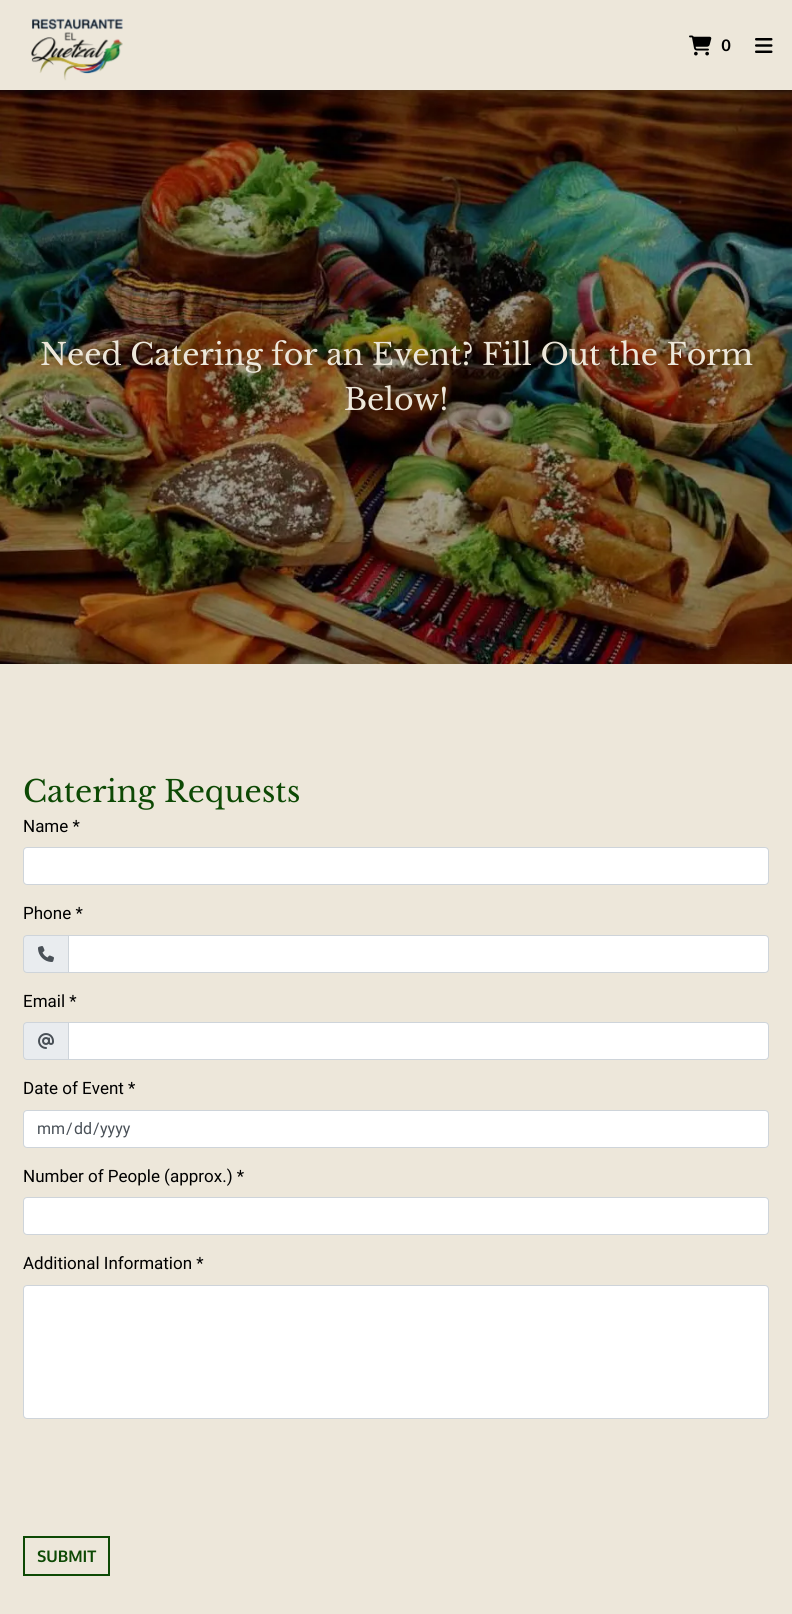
#include <cairo.h>
#include <math.h>
#include <stddef.h>


static void rgb(cairo_t *cr, int r, int g, int b)
{
	cairo_set_source_rgb(cr, r / 255.0, g / 255.0, b / 255.0);
}

static void face(cairo_t *cr, const char *family, double size, int italic, int bold)
{
	cairo_select_font_face(cr, family, italic ? CAIRO_FONT_SLANT_ITALIC : CAIRO_FONT_SLANT_NORMAL,
		bold ? CAIRO_FONT_WEIGHT_BOLD : CAIRO_FONT_WEIGHT_NORMAL);
	cairo_set_font_size(cr, size);
}

static void label(cairo_t *cr, double x, double y, const char *s)
{
	cairo_move_to(cr, x, y);
	cairo_show_text(cr, s);
}

static void rect(cairo_t *cr, double x, double y, double w, double h)
{
	cairo_rectangle(cr, x, y, w, h);
	cairo_fill(cr);
}

static void rrect(cairo_t *cr, double x, double y, double w, double h, double r)
{
	cairo_new_sub_path(cr);
	cairo_arc(cr, x + w - r, y + h - r, r, 0, M_PI / 2);
	cairo_arc(cr, x + r, y + h - r, r, M_PI / 2, M_PI);
	cairo_arc(cr, x + r, y + r, r, M_PI, 1.5 * M_PI);
	cairo_arc(cr, x + w - r, y + r, r, 1.5 * M_PI, 2 * M_PI);
	cairo_close_path(cr);
}

static void soft_shadow(cairo_t *cr, double x, double y, double w, double h, double r, double blur, double alpha)
{
	cairo_push_group_with_content(cr, CAIRO_CONTENT_ALPHA);
	cairo_set_operator(cr, CAIRO_OPERATOR_SOURCE);
	for (int i = 15; i >= -15 && fmin(w, h) + blur * i / 3 > 0; i -= 2) {
		double e = blur * i / 6;
		cairo_set_source_rgba(cr, 0, 0, 0, alpha * erfc((i - 1) / 8.5) / 2);
		rrect(cr, x - e, y - e, w + 2 * e, h + 2 * e, fmax(0, fmin(r + e + blur * .6, fmin(w, h) / 2 + e)));
		cairo_fill(cr);
	}
	cairo_pattern_t *soft = cairo_pop_group(cr);
	cairo_mask(cr, soft);
	cairo_pattern_destroy(soft);
}

static void image(cairo_t *cr, const char *path, double x, double y, double w, double h)
{
	cairo_surface_t *image = cairo_image_surface_create_from_png(path);
	cairo_save(cr);
	cairo_set_source_surface(cr, image, x, y);
	cairo_rectangle(cr, x, y, w, h);
	cairo_fill(cr);
	cairo_restore(cr);
	cairo_surface_destroy(image);
}

static void draw(cairo_t *cr) {
	rgb(cr, 255, 255, 255);
	cairo_paint(cr);
	image(cr, "image3.png", 0, 90, 792, 574);
	rgb(cr, 32, 33, 36);
	soft_shadow(cr, 0, 1, 792, 90, 0, 3, 0.28);
	rgb(cr, 237, 231, 218);
	rect(cr, 0, 0, 792, 90);
	image(cr, "image0.png", 31, 18, 92, 63);
	image(cr, "image1.png", 689, 35, 23, 21);
	face(cr, "Oxygen", 16, 0, 1);
	rgb(cr, 0, 0, 0);
	label(cr, 721, 51, "0");
	image(cr, "image2.png", 755, 38, 18, 15);
	face(cr, "Libre Baskerville", 30, 0, 0);
	rgb(cr, 237, 231, 218);
	label(cr, 40, 365, "Need Catering for an Event? Fill Out the Form");
	label(cr, 344, 410, "Below!");
	rect(cr, 0, 664, 792, 950);
	rgb(cr, 13, 73, 4);
	label(cr, 23, 802, "Catering Requests");
	face(cr, "Roboto", 17, 0, 0);
	rgb(cr, 0, 0, 0);
	label(cr, 23, 832, "Name *");
	rgb(cr, 255, 255, 255);
	rrect(cr, 23.5, 847.5, 745, 37, 3.5);
	cairo_fill_preserve(cr);
	rgb(cr, 206, 212, 218);
	cairo_set_line_width(cr, 1);
	cairo_stroke(cr);
	rgb(cr, 0, 0, 0);
	label(cr, 23, 919, "Phone *");
	rgb(cr, 233, 236, 239);
	cairo_new_path(cr);
	cairo_move_to(cr, 27, 935.5);
	cairo_line_to(cr, 68.5, 935.5);
	cairo_line_to(cr, 68.5, 972.5);
	cairo_line_to(cr, 27, 972.5);
	cairo_curve_to(cr, 25, 972.5, 23.5, 971, 23.5, 969);
	cairo_line_to(cr, 23.5, 939);
	cairo_curve_to(cr, 23.5, 937, 25, 935.5, 27, 935.5);
	cairo_close_path(cr);
	cairo_fill_preserve(cr);
	rgb(cr, 206, 212, 218);
	cairo_stroke(cr);
	image(cr, "image4.png", 38, 946, 16, 16);
	rgb(cr, 255, 255, 255);
	cairo_new_path(cr);
	cairo_move_to(cr, 68.5, 935.5);
	cairo_line_to(cr, 765, 935.5);
	cairo_curve_to(cr, 767, 935.5, 768.5, 937, 768.5, 939);
	cairo_line_to(cr, 768.5, 969);
	cairo_curve_to(cr, 768.5, 971, 767, 972.5, 765, 972.5);
	cairo_line_to(cr, 68.5, 972.5);
	cairo_close_path(cr);
	cairo_fill_preserve(cr);
	rgb(cr, 206, 212, 218);
	cairo_stroke(cr);
	rgb(cr, 0, 0, 0);
	label(cr, 23, 1007, "Email *");
	rgb(cr, 233, 236, 239);
	cairo_new_path(cr);
	cairo_move_to(cr, 27, 1022.5);
	cairo_line_to(cr, 68.5, 1022.5);
	cairo_line_to(cr, 68.5, 1059.5);
	cairo_line_to(cr, 27, 1059.5);
	cairo_curve_to(cr, 25, 1059.5, 23.5, 1058, 23.5, 1056);
	cairo_line_to(cr, 23.5, 1026);
	cairo_curve_to(cr, 23.5, 1024, 25, 1022.5, 27, 1022.5);
	cairo_close_path(cr);
	cairo_fill_preserve(cr);
	rgb(cr, 206, 212, 218);
	cairo_stroke(cr);
	image(cr, "image5.png", 38, 1033, 16, 16);
	rgb(cr, 255, 255, 255);
	cairo_new_path(cr);
	cairo_move_to(cr, 68.5, 1022.5);
	cairo_line_to(cr, 765, 1022.5);
	cairo_curve_to(cr, 767, 1022.5, 768.5, 1024, 768.5, 1026);
	cairo_line_to(cr, 768.5, 1056);
	cairo_curve_to(cr, 768.5, 1058, 767, 1059.5, 765, 1059.5);
	cairo_line_to(cr, 68.5, 1059.5);
	cairo_close_path(cr);
	cairo_fill_preserve(cr);
	rgb(cr, 206, 212, 218);
	cairo_stroke(cr);
	rgb(cr, 0, 0, 0);
	label(cr, 23, 1094, "Date of Event *");
	rgb(cr, 255, 255, 255);
	rrect(cr, 23.5, 1110.5, 745, 37, 3.5);
	cairo_fill_preserve(cr);
	rgb(cr, 206, 212, 218);
	cairo_stroke(cr);
	face(cr, "Roboto", 16, 0, 0);
	rgb(cr, 73, 80, 87);
	label(cr, 37, 1134, "mm");
	label(cr, 66, 1134, "/");
	label(cr, 74, 1134, "dd");
	label(cr, 93, 1134, "/");
	label(cr, 100, 1134, "yyyy");
	face(cr, "Roboto", 17, 0, 0);
	rgb(cr, 0, 0, 0);
	label(cr, 23, 1182, "Number of People (approx.) *");
	rgb(cr, 255, 255, 255);
	rrect(cr, 23.5, 1197.5, 745, 37, 3.5);
	cairo_fill_preserve(cr);
	rgb(cr, 206, 212, 218);
	cairo_stroke(cr);
	rgb(cr, 0, 0, 0);
	label(cr, 23, 1269, "Additional Information *");
	rgb(cr, 255, 255, 255);
	rrect(cr, 23.5, 1285.5, 745, 133, 3.5);
	cairo_fill_preserve(cr);
	rgb(cr, 206, 212, 218);
	cairo_stroke(cr);
	cairo_rectangle(cr, 24, 1537, 85, 38);
	rgb(cr, 13, 73, 4);
	cairo_set_line_width(cr, 2);
	cairo_stroke(cr);
	face(cr, "Oxygen", 16, 0, 1);
	label(cr, 37, 1562, "SUBMIT");
}

int main(void) {
	cairo_surface_t *surface = cairo_image_surface_create(CAIRO_FORMAT_RGB24, 792, 1614);
	cairo_t *cr = cairo_create(surface);
	cairo_font_options_t *options = cairo_font_options_create();
	cairo_font_options_set_hint_metrics(options, CAIRO_HINT_METRICS_OFF);
	cairo_font_options_set_hint_style(options, CAIRO_HINT_STYLE_NONE);
	cairo_set_font_options(cr, options);
	cairo_set_miter_limit(cr, 4);
	draw(cr);
	cairo_surface_write_to_png(surface, "render.png");
	cairo_font_options_destroy(options);
	cairo_destroy(cr);
	cairo_surface_destroy(surface);
	return 0;
}
